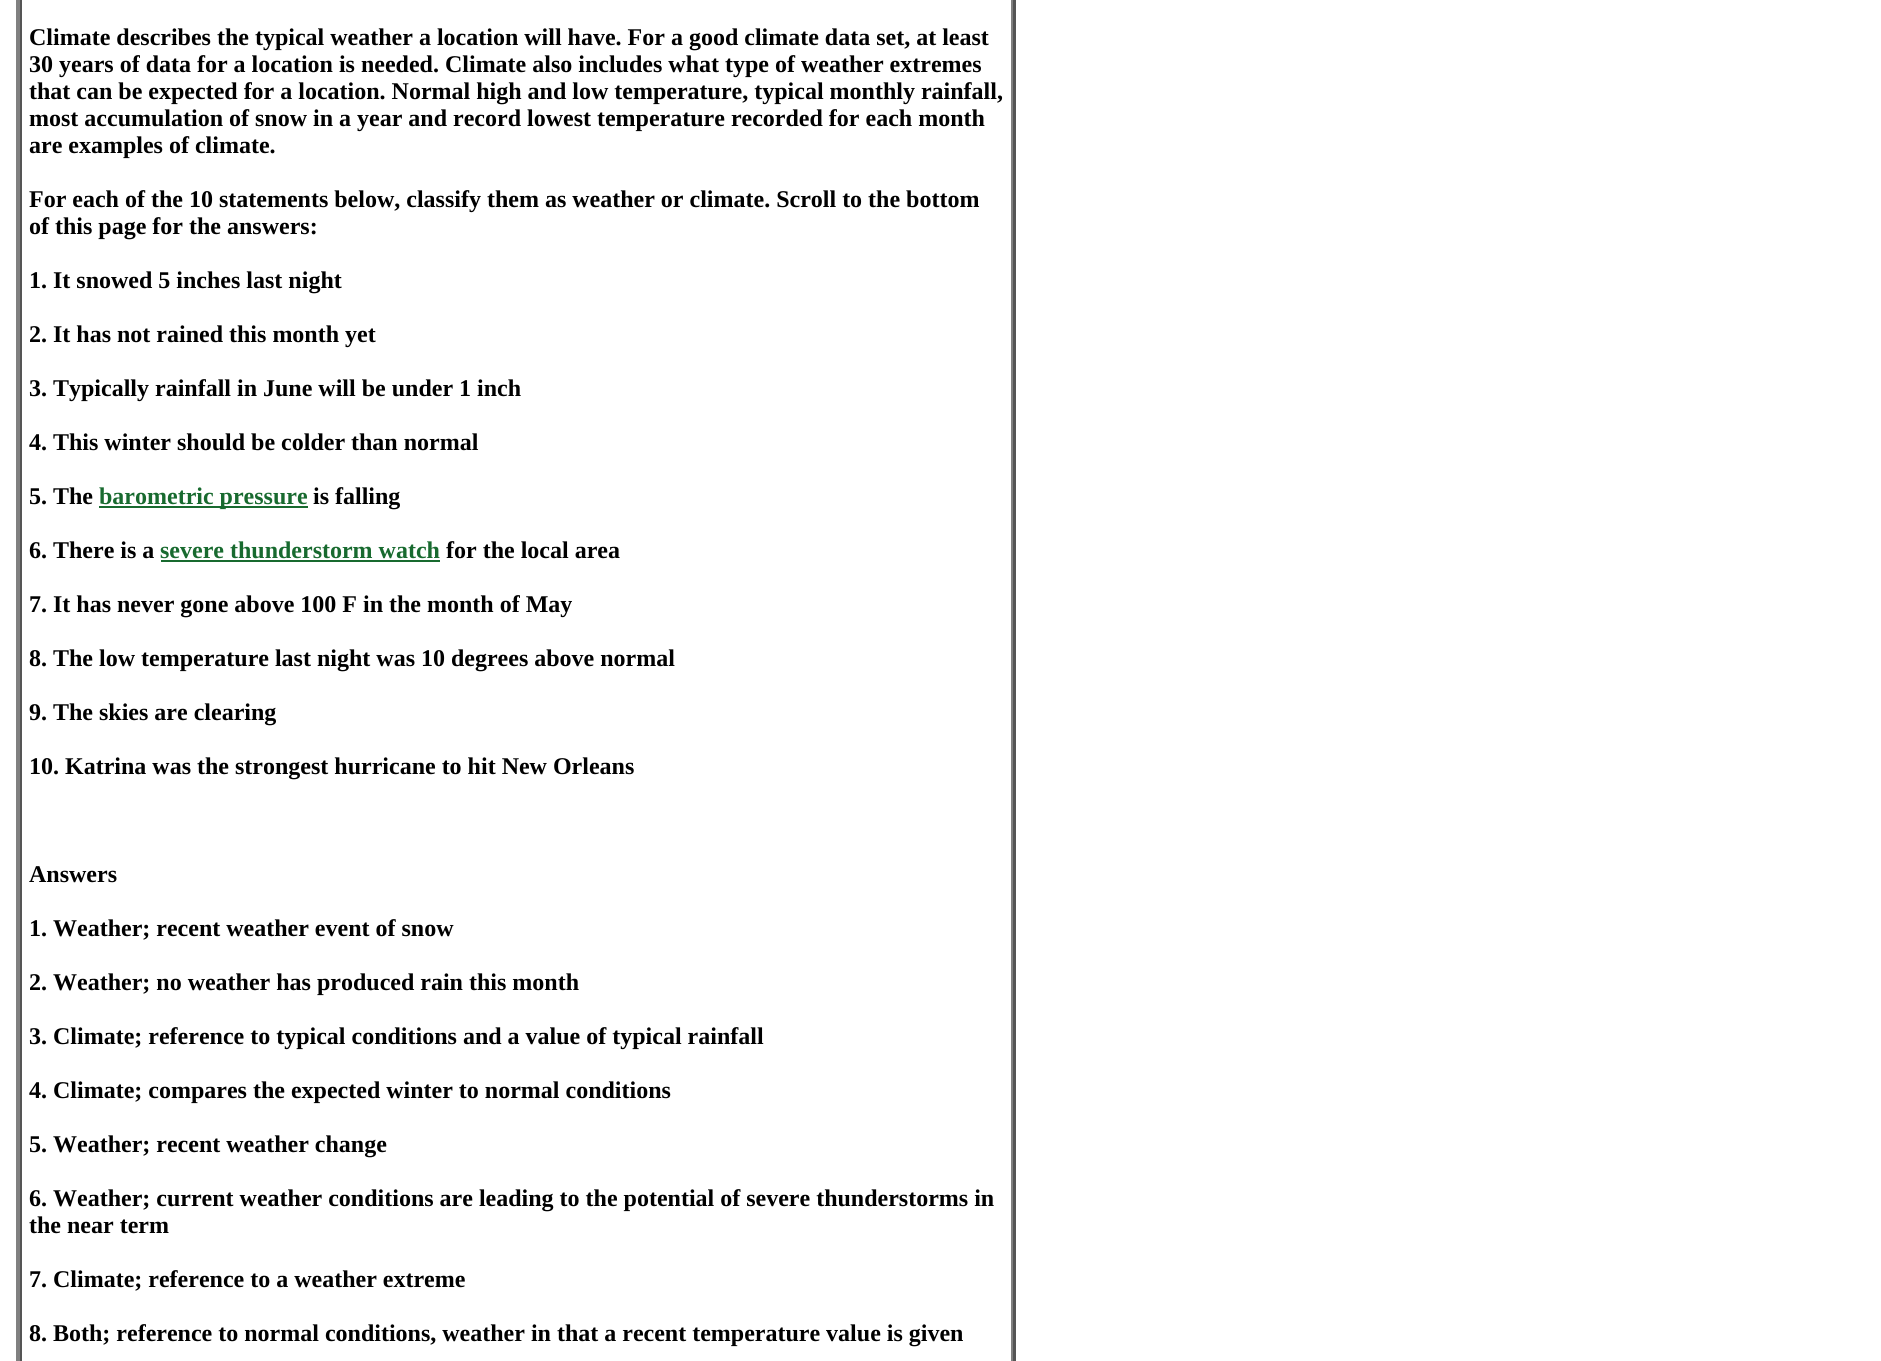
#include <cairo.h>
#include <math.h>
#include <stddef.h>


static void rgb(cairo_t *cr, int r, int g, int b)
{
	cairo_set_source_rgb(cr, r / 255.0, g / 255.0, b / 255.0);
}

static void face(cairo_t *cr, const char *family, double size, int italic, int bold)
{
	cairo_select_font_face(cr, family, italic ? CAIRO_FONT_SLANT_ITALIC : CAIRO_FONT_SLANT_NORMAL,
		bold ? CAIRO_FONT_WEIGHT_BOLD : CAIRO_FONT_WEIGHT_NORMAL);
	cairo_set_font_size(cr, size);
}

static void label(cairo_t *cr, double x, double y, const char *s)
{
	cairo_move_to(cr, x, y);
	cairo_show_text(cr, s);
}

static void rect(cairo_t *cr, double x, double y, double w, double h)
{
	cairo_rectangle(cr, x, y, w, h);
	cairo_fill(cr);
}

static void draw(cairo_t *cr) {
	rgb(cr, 255, 255, 255);
	cairo_paint(cr);
	rgb(cr, 85, 85, 85);
	cairo_new_path(cr);
	cairo_move_to(cr, 1016, -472);
	cairo_line_to(cr, 1016, 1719);
	cairo_line_to(cr, 1012, 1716);
	cairo_line_to(cr, 1012, -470);
	cairo_close_path(cr);
	cairo_fill(cr);
	rgb(cr, 128, 128, 128);
	cairo_new_path(cr);
	cairo_move_to(cr, 16, 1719);
	cairo_line_to(cr, 16, -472);
	cairo_line_to(cr, 20, -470);
	cairo_line_to(cr, 20, 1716);
	cairo_close_path(cr);
	cairo_fill(cr);
	rect(cr, 1011, 0, 2, 1361);
	rgb(cr, 85, 85, 85);
	rect(cr, 20, 0, 2, 1361);
	face(cr, "Liberation Serif", 24, 0, 1);
	rgb(cr, 0, 0, 0);
	label(cr, 29, 45, "Climate describes the typical weather a location will have. For a good climate data set, at least");
	label(cr, 29, 72, "30 years of data for a location is needed. Climate also includes what type of weather extremes");
	label(cr, 29, 99, "that can be expected for a location. Normal high and low temperature, typical monthly rainfall,");
	label(cr, 29, 126, "most accumulation of snow in a year and record lowest temperature recorded for each month");
	label(cr, 29, 153, "are examples of climate.");
	label(cr, 29, 207, "For each of the 10 statements below, classify them as weather or climate. Scroll to the bottom");
	label(cr, 29, 234, "of this page for the answers:");
	label(cr, 29, 288, "1. It snowed 5 inches last night");
	label(cr, 29, 342, "2. It has not rained this month yet");
	label(cr, 29, 396, "3. Typically rainfall in June will be under 1 inch");
	label(cr, 29, 450, "4. This winter should be colder than normal");
	label(cr, 29, 504, "5. The");
	rgb(cr, 24, 106, 47);
	rect(cr, 99, 506, 209, 2);
	label(cr, 99, 504, "barometric pressure");
	rgb(cr, 0, 0, 0);
	label(cr, 313, 504, "is falling");
	label(cr, 29, 558, "6. There is a");
	rgb(cr, 24, 106, 47);
	label(cr, 160, 558, "severe thunderstorm watch");
	rect(cr, 161, 560, 279, 2);
	rgb(cr, 0, 0, 0);
	label(cr, 446, 558, "for the local area");
	label(cr, 29, 612, "7. It has never gone above 100 F in the month of May");
	label(cr, 29, 666, "8. The low temperature last night was 10 degrees above normal");
	label(cr, 29, 720, "9. The skies are clearing");
	label(cr, 29, 774, "10. Katrina was the strongest hurricane to hit New Orleans");
	label(cr, 29, 882, "Answers");
	label(cr, 29, 936, "1. Weather; recent weather event of snow");
	label(cr, 29, 990, "2. Weather; no weather has produced rain this month");
	label(cr, 29, 1044, "3. Climate; reference to typical conditions and a value of typical rainfall");
	label(cr, 29, 1098, "4. Climate; compares the expected winter to normal conditions");
	label(cr, 29, 1152, "5. Weather; recent weather change");
	label(cr, 29, 1206, "6. Weather; current weather conditions are leading to the potential of severe thunderstorms in");
	label(cr, 29, 1233, "the near term");
	label(cr, 29, 1287, "7. Climate; reference to a weather extreme");
	label(cr, 29, 1341, "8. Both; reference to normal conditions, weather in that a recent temperature value is given");
}

int main(void) {
	cairo_surface_t *surface = cairo_image_surface_create(CAIRO_FORMAT_RGB24, 1881, 1361);
	cairo_t *cr = cairo_create(surface);
	cairo_font_options_t *options = cairo_font_options_create();
	cairo_font_options_set_hint_metrics(options, CAIRO_HINT_METRICS_OFF);
	cairo_font_options_set_hint_style(options, CAIRO_HINT_STYLE_NONE);
	cairo_set_font_options(cr, options);
	cairo_set_miter_limit(cr, 4);
	draw(cr);
	cairo_surface_write_to_png(surface, "render.png");
	cairo_font_options_destroy(options);
	cairo_destroy(cr);
	cairo_surface_destroy(surface);
	return 0;
}
